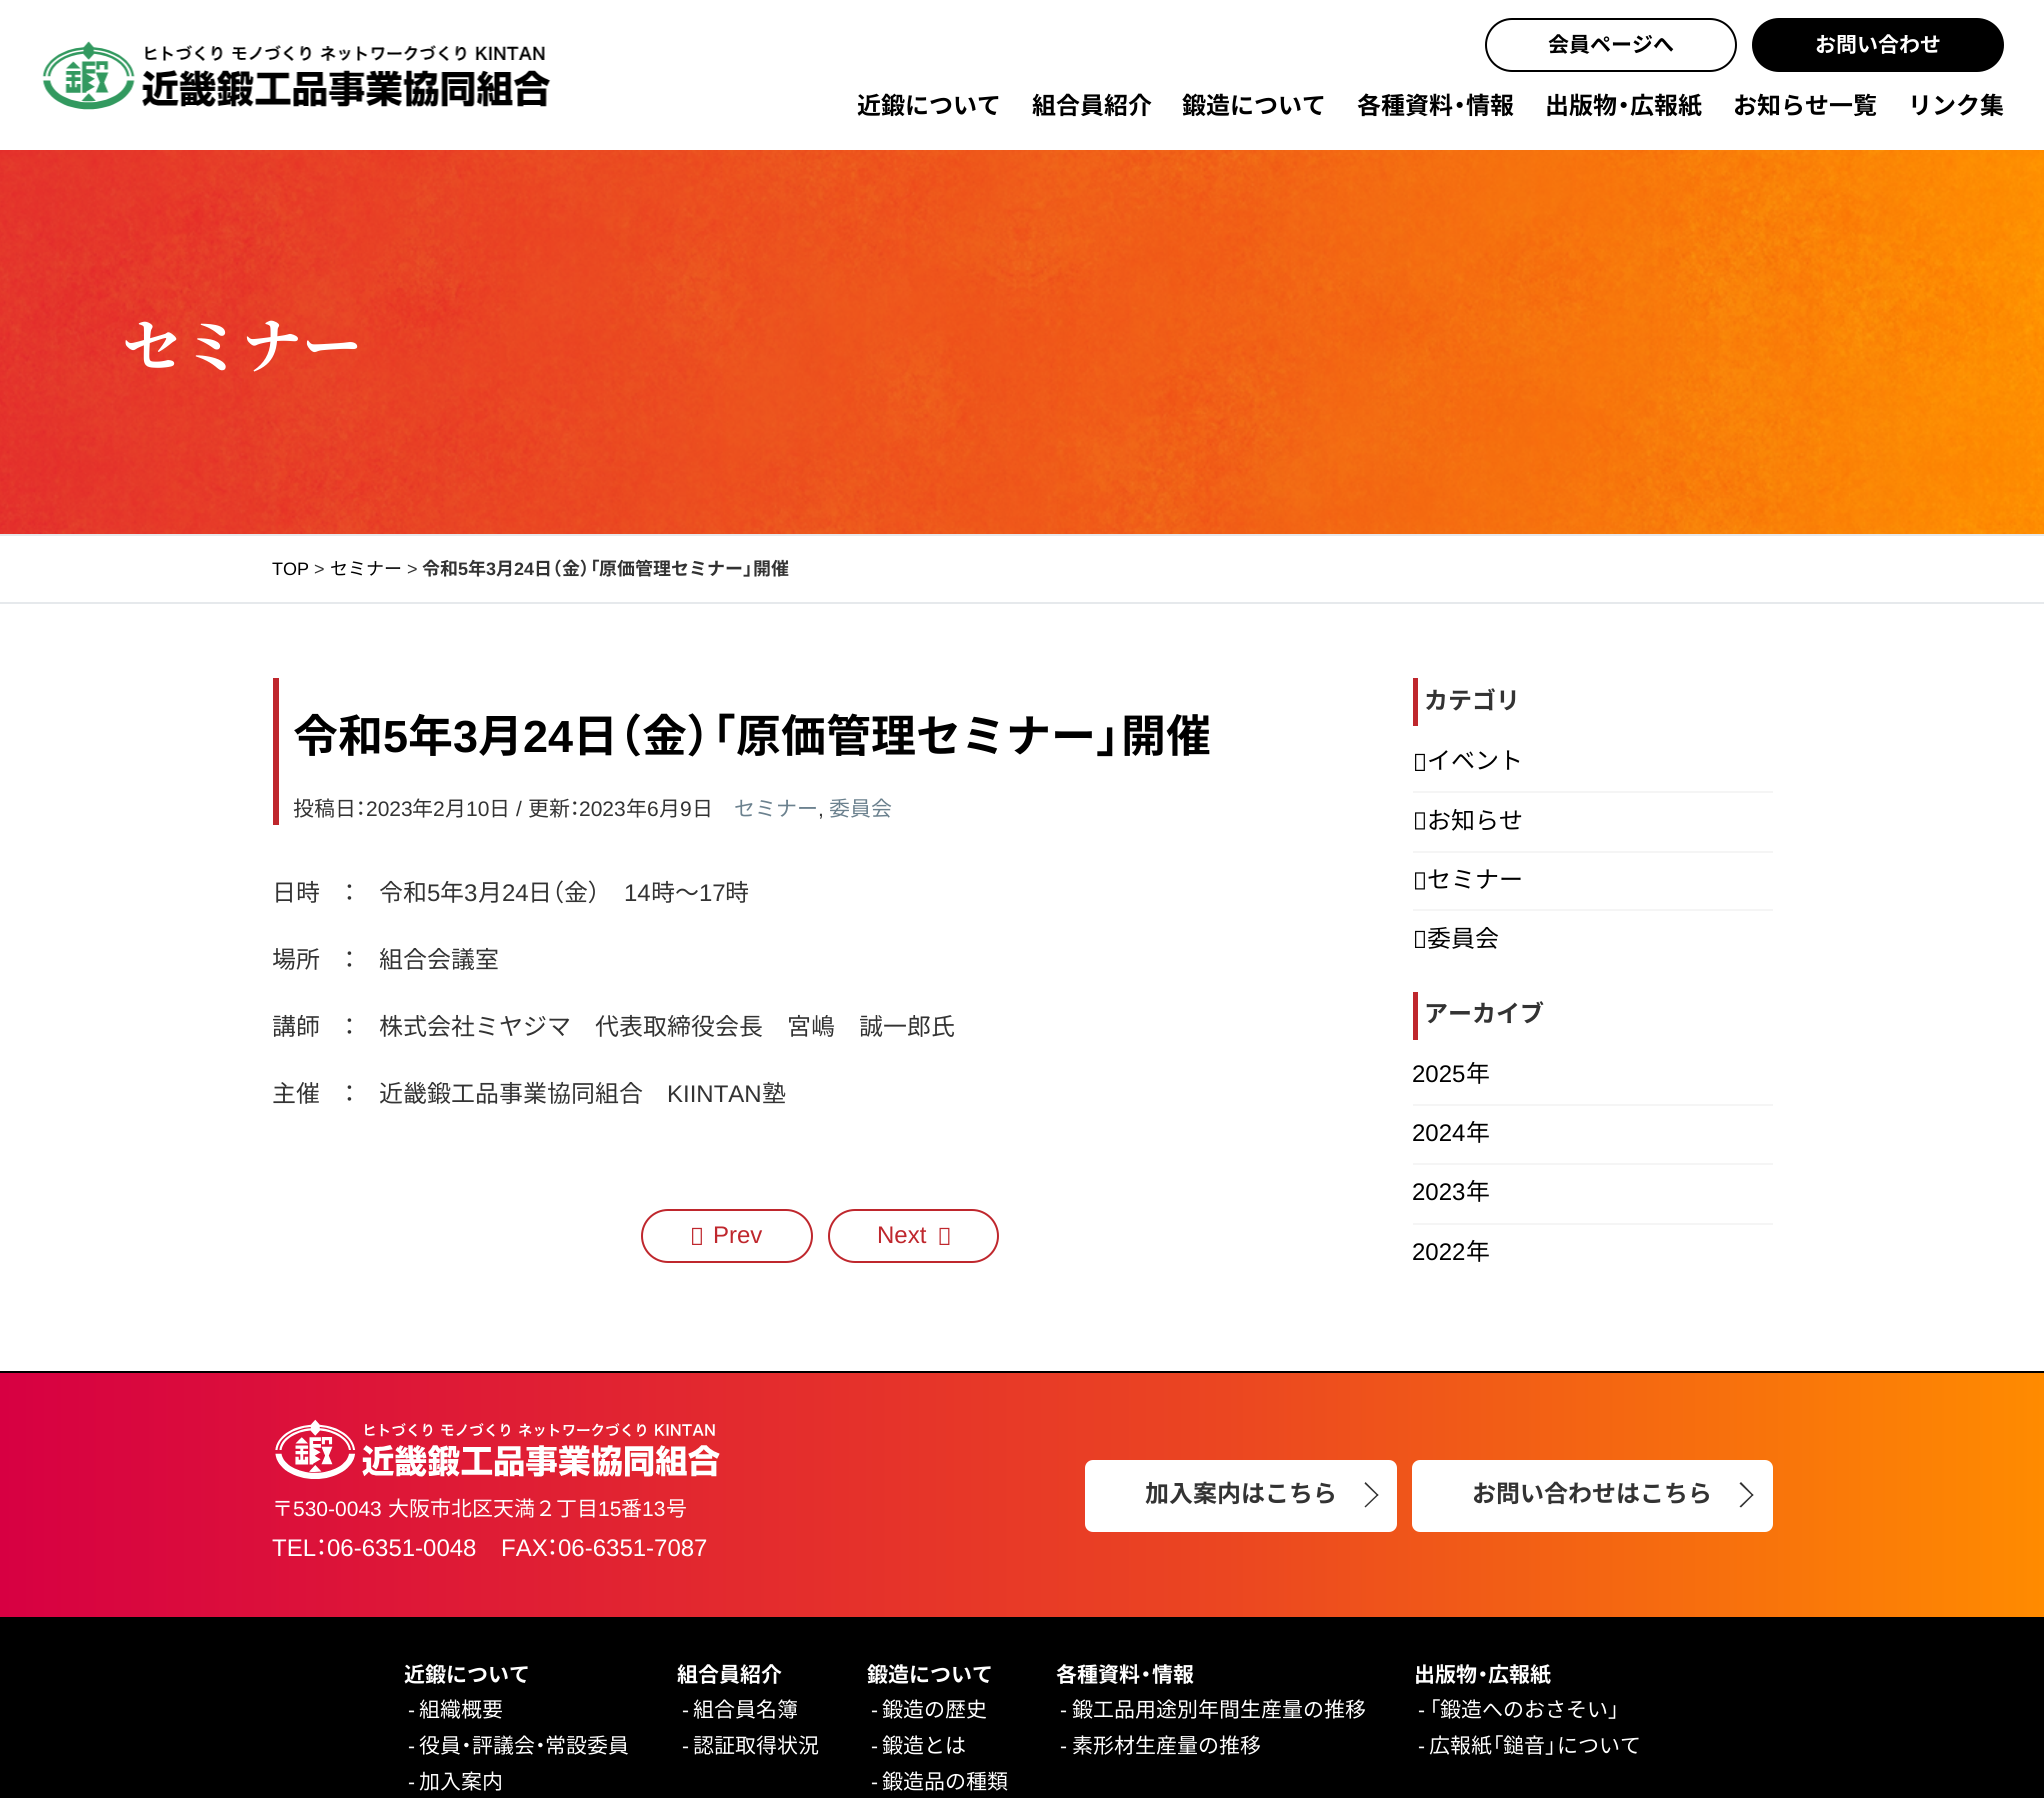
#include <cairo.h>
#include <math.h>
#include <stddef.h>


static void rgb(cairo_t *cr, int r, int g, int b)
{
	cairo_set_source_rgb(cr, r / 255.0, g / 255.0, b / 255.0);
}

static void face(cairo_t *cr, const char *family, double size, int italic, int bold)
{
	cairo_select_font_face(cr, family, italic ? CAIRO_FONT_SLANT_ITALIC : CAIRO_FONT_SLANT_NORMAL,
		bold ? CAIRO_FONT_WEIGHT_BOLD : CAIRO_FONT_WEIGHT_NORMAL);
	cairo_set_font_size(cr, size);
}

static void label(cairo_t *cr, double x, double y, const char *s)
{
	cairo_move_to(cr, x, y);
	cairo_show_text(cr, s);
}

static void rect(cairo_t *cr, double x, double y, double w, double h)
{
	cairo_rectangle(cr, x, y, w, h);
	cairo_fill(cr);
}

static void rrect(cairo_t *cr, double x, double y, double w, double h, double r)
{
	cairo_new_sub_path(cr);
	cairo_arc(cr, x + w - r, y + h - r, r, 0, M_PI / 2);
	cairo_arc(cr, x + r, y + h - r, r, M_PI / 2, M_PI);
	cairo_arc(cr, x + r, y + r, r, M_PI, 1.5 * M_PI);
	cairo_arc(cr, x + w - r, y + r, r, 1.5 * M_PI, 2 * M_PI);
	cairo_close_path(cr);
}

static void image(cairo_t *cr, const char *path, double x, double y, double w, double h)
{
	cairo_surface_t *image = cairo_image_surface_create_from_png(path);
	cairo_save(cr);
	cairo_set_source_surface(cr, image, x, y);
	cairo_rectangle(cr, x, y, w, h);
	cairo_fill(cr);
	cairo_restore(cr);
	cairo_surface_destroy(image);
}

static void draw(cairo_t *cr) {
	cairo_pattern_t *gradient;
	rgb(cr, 255, 255, 255);
	cairo_paint(cr);
	image(cr, "image0.png", 42, 41, 509, 69);
	rrect(cr, 1486, 19, 250, 52, 26);
	rgb(cr, 0, 0, 0);
	cairo_stroke(cr);
	face(cr, "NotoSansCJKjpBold", 21, 0, 1);
	label(cr, 1548, 52, "会員ページへ");
	rrect(cr, 1753, 19, 250, 52, 26);
	cairo_fill_preserve(cr);
	cairo_stroke(cr);
	rgb(cr, 255, 255, 255);
	label(cr, 1815, 52, "お問い合わせ");
	face(cr, "NotoSansCJKjpBold", 24, 0, 1);
	rgb(cr, 0, 0, 0);
	label(cr, 857, 114, "近鍛について");
	label(cr, 1032, 114, "組合員紹介");
	label(cr, 1182, 114, "鍛造について");
	label(cr, 1357, 114, "各種資料");
	face(cr, "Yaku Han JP", 24, 0, 1);
	label(cr, 1453, 114, "・");
	face(cr, "NotoSansCJKjpBold", 24, 0, 1);
	label(cr, 1466, 114, "情報");
	label(cr, 1545, 114, "出版物");
	face(cr, "Yaku Han JP", 24, 0, 1);
	label(cr, 1617, 114, "・");
	face(cr, "NotoSansCJKjpBold", 24, 0, 1);
	label(cr, 1630, 114, "広報紙");
	label(cr, 1733, 114, "お知らせ一覧");
	label(cr, 1908, 114, "リンク集");
	gradient = cairo_pattern_create_linear(0, 342, 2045, 342);
	cairo_pattern_add_color_stop_rgba(gradient, 0, 0.843, 0, 0.259, 1);
	cairo_pattern_add_color_stop_rgba(gradient, 0.6, 0.922, 0.275, 0.129, 1);
	cairo_pattern_add_color_stop_rgba(gradient, 1, 1, 0.545, 0, 1);
	cairo_set_source(cr, gradient);
	cairo_pattern_destroy(gradient);
	rect(cr, 0, 150, 2044, 384);
	image(cr, "image1.png", 0, 150, 2044, 384);
	face(cr, "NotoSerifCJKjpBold", 60, 0, 1);
	rgb(cr, 255, 255, 255);
	label(cr, 122, 368, "セミナー");
	rgb(cr, 230, 233, 236);
	rect(cr, 0, 534, 2044, 2);
	rect(cr, 0, 602, 2044, 2);
	face(cr, "Liberation Sans", 18, 0, 0);
	rgb(cr, 0, 0, 0);
	label(cr, 272, 575, "TOP");
	rgb(cr, 51, 51, 51);
	label(cr, 314, 575, ">");
	face(cr, "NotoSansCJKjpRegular", 18, 0, 0);
	rgb(cr, 0, 0, 0);
	label(cr, 330, 575, "セミナー");
	face(cr, "Liberation Sans", 18, 0, 0);
	rgb(cr, 51, 51, 51);
	label(cr, 407, 575, ">");
	face(cr, "NotoSansCJKjpBold", 18, 0, 1);
	label(cr, 422, 575, "令和");
	face(cr, "Liberation Sans", 18, 0, 1);
	label(cr, 458, 575, "5");
	face(cr, "NotoSansCJKjpBold", 18, 0, 1);
	label(cr, 468, 575, "年");
	face(cr, "Liberation Sans", 18, 0, 1);
	label(cr, 486, 575, "3");
	face(cr, "NotoSansCJKjpBold", 18, 0, 1);
	label(cr, 496, 575, "月");
	face(cr, "Liberation Sans", 18, 0, 1);
	label(cr, 514, 575, "24");
	face(cr, "NotoSansCJKjpBold", 18, 0, 1);
	label(cr, 534, 575, "日");
	face(cr, "Yaku Han JP", 18, 0, 1);
	label(cr, 552, 575, "（");
	face(cr, "NotoSansCJKjpBold", 18, 0, 1);
	label(cr, 562, 575, "金");
	face(cr, "Yaku Han JP", 18, 0, 1);
	label(cr, 580, 575, "）「");
	face(cr, "NotoSansCJKjpBold", 18, 0, 1);
	label(cr, 599, 575, "原価管理セミナー");
	face(cr, "Yaku Han JP", 18, 0, 1);
	label(cr, 743, 575, "」");
	face(cr, "NotoSansCJKjpBold", 18, 0, 1);
	label(cr, 753, 575, "開催");
	rgb(cr, 191, 39, 45);
	rect(cr, 273, 678, 6, 147);
	face(cr, "NotoSansCJKjpBold", 45, 0, 1);
	rgb(cr, 0, 0, 0);
	label(cr, 293, 752, "令和");
	face(cr, "Liberation Sans", 45, 0, 1);
	label(cr, 383, 752, "5");
	face(cr, "NotoSansCJKjpBold", 45, 0, 1);
	label(cr, 408, 752, "年");
	face(cr, "Liberation Sans", 45, 0, 1);
	label(cr, 453, 752, "3");
	face(cr, "NotoSansCJKjpBold", 45, 0, 1);
	label(cr, 478, 752, "月");
	face(cr, "Liberation Sans", 45, 0, 1);
	label(cr, 523, 752, "24");
	face(cr, "NotoSansCJKjpBold", 45, 0, 1);
	label(cr, 573, 752, "日");
	face(cr, "Yaku Han JP", 45, 0, 1);
	label(cr, 618, 752, "（");
	face(cr, "NotoSansCJKjpBold", 45, 0, 1);
	label(cr, 642, 752, "金");
	face(cr, "Yaku Han JP", 45, 0, 1);
	label(cr, 687, 752, "）「");
	face(cr, "NotoSansCJKjpBold", 45, 0, 1);
	label(cr, 736, 752, "原価管理セミナー");
	face(cr, "Yaku Han JP", 45, 0, 1);
	label(cr, 1096, 752, "」");
	face(cr, "NotoSansCJKjpBold", 45, 0, 1);
	label(cr, 1121, 752, "開催");
	face(cr, "NotoSansCJKjpRegular", 21, 0, 0);
	rgb(cr, 51, 51, 51);
	label(cr, 293, 816, "投稿日");
	face(cr, "Yaku Han JP", 21, 0, 0);
	label(cr, 356, 816, "：");
	face(cr, "Liberation Sans", 21, 0, 0);
	label(cr, 366, 816, "2023");
	face(cr, "NotoSansCJKjpRegular", 21, 0, 0);
	label(cr, 412, 816, "年");
	face(cr, "Liberation Sans", 21, 0, 0);
	label(cr, 433, 816, "2");
	face(cr, "NotoSansCJKjpRegular", 21, 0, 0);
	label(cr, 445, 816, "月");
	face(cr, "Liberation Sans", 21, 0, 0);
	label(cr, 466, 816, "10");
	face(cr, "NotoSansCJKjpRegular", 21, 0, 0);
	label(cr, 489, 816, "日");
	face(cr, "Liberation Sans", 21, 0, 0);
	label(cr, 516, 816, "/");
	face(cr, "NotoSansCJKjpRegular", 21, 0, 0);
	label(cr, 528, 816, "更新");
	face(cr, "Yaku Han JP", 21, 0, 0);
	label(cr, 570, 816, "：");
	face(cr, "Liberation Sans", 21, 0, 0);
	label(cr, 579, 816, "2023");
	face(cr, "NotoSansCJKjpRegular", 21, 0, 0);
	label(cr, 626, 816, "年");
	face(cr, "Liberation Sans", 21, 0, 0);
	label(cr, 647, 816, "6");
	face(cr, "NotoSansCJKjpRegular", 21, 0, 0);
	label(cr, 659, 816, "月");
	face(cr, "Liberation Sans", 21, 0, 0);
	label(cr, 680, 816, "9");
	face(cr, "NotoSansCJKjpRegular", 21, 0, 0);
	label(cr, 692, 816, "日");
	rgb(cr, 107, 129, 142);
	label(cr, 734, 816, "セミナー");
	face(cr, "Liberation Sans", 21, 0, 0);
	rgb(cr, 51, 51, 51);
	label(cr, 818, 816, ",");
	face(cr, "NotoSansCJKjpRegular", 21, 0, 0);
	rgb(cr, 107, 129, 142);
	label(cr, 829, 816, "委員会");
	face(cr, "NotoSansCJKjpRegular", 24, 0, 0);
	rgb(cr, 51, 51, 51);
	label(cr, 272, 901, "日時");
	face(cr, "Yaku Han JP", 24, 0, 0);
	label(cr, 344, 901, "：");
	face(cr, "NotoSansCJKjpRegular", 24, 0, 0);
	label(cr, 379, 901, "令和");
	face(cr, "Liberation Sans", 24, 0, 0);
	label(cr, 427, 901, "5");
	face(cr, "NotoSansCJKjpRegular", 24, 0, 0);
	label(cr, 440, 901, "年");
	face(cr, "Liberation Sans", 24, 0, 0);
	label(cr, 464, 901, "3");
	face(cr, "NotoSansCJKjpRegular", 24, 0, 0);
	label(cr, 478, 901, "月");
	face(cr, "Liberation Sans", 24, 0, 0);
	label(cr, 502, 901, "24");
	face(cr, "NotoSansCJKjpRegular", 24, 0, 0);
	label(cr, 528, 901, "日");
	face(cr, "Yaku Han JP", 24, 0, 0);
	label(cr, 552, 901, "（");
	face(cr, "NotoSansCJKjpRegular", 24, 0, 0);
	label(cr, 564, 901, "金");
	face(cr, "Yaku Han JP", 24, 0, 0);
	label(cr, 588, 901, "）");
	face(cr, "Liberation Sans", 24, 0, 0);
	label(cr, 624, 901, "14");
	face(cr, "NotoSansCJKjpRegular", 24, 0, 0);
	label(cr, 651, 901, "時～");
	face(cr, "Liberation Sans", 24, 0, 0);
	label(cr, 699, 901, "17");
	face(cr, "NotoSansCJKjpRegular", 24, 0, 0);
	label(cr, 725, 901, "時");
	label(cr, 272, 968, "場所");
	face(cr, "Yaku Han JP", 24, 0, 0);
	label(cr, 344, 968, "：");
	face(cr, "NotoSansCJKjpRegular", 24, 0, 0);
	label(cr, 379, 968, "組合会議室");
	label(cr, 272, 1035, "講師");
	face(cr, "Yaku Han JP", 24, 0, 0);
	label(cr, 344, 1035, "：");
	face(cr, "NotoSansCJKjpRegular", 24, 0, 0);
	label(cr, 379, 1035, "株式会社ミヤジマ");
	label(cr, 595, 1035, "代表取締役会長");
	label(cr, 787, 1035, "宮嶋");
	label(cr, 859, 1035, "誠一郎氏");
	label(cr, 272, 1102, "主催");
	face(cr, "Yaku Han JP", 24, 0, 0);
	label(cr, 344, 1102, "：");
	face(cr, "NotoSansCJKjpRegular", 24, 0, 0);
	label(cr, 379, 1102, "近畿鍛工品事業協同組合");
	face(cr, "Liberation Sans", 24, 0, 0);
	label(cr, 667, 1102, "KIINTAN");
	face(cr, "NotoSansCJKjpRegular", 24, 0, 0);
	label(cr, 762, 1102, "塾");
	rrect(cr, 642, 1210, 170, 52, 26);
	rgb(cr, 191, 39, 45);
	cairo_stroke(cr);
	image(cr, "image2.png", 692, 1227, 10, 18);
	face(cr, "Liberation Sans", 24, 0, 0);
	label(cr, 713, 1243, "Prev");
	rrect(cr, 829, 1210, 169, 52, 26);
	cairo_stroke(cr);
	label(cr, 877, 1243, "Next");
	image(cr, "image3.png", 939, 1227, 11, 18);
	rect(cr, 1413, 678, 5, 48);
	face(cr, "NotoSansCJKjpBold", 24, 0, 1);
	rgb(cr, 51, 51, 51);
	label(cr, 1424, 709, "カテゴリ");
	image(cr, "image4.png", 1415, 753, 10, 18);
	face(cr, "NotoSansCJKjpRegular", 24, 0, 0);
	rgb(cr, 0, 0, 0);
	label(cr, 1427, 769, "イベント");
	rgb(cr, 245, 245, 245);
	rect(cr, 1413, 791, 360, 2);
	image(cr, "image5.png", 1415, 812, 10, 18);
	rgb(cr, 0, 0, 0);
	label(cr, 1427, 829, "お知らせ");
	rgb(cr, 245, 245, 245);
	rect(cr, 1413, 851, 360, 2);
	image(cr, "image5.png", 1415, 872, 10, 18);
	rgb(cr, 0, 0, 0);
	label(cr, 1427, 888, "セミナー");
	rgb(cr, 245, 245, 245);
	rect(cr, 1413, 909, 360, 2);
	image(cr, "image4.png", 1415, 930, 10, 18);
	rgb(cr, 0, 0, 0);
	label(cr, 1427, 947, "委員会");
	rgb(cr, 191, 39, 45);
	rect(cr, 1413, 992, 5, 48);
	face(cr, "NotoSansCJKjpBold", 24, 0, 1);
	rgb(cr, 51, 51, 51);
	label(cr, 1424, 1022, "アーカイブ");
	face(cr, "Liberation Sans", 24, 0, 0);
	rgb(cr, 0, 0, 0);
	label(cr, 1412, 1082, "2025");
	face(cr, "NotoSansCJKjpRegular", 24, 0, 0);
	label(cr, 1466, 1082, "年");
	rgb(cr, 245, 245, 245);
	rect(cr, 1413, 1104, 360, 2);
	face(cr, "Liberation Sans", 24, 0, 0);
	rgb(cr, 0, 0, 0);
	label(cr, 1412, 1141, "2024");
	face(cr, "NotoSansCJKjpRegular", 24, 0, 0);
	label(cr, 1466, 1141, "年");
	rgb(cr, 245, 245, 245);
	rect(cr, 1413, 1163, 360, 2);
	face(cr, "Liberation Sans", 24, 0, 0);
	rgb(cr, 0, 0, 0);
	label(cr, 1412, 1200, "2023");
	face(cr, "NotoSansCJKjpRegular", 24, 0, 0);
	label(cr, 1466, 1200, "年");
	rgb(cr, 245, 245, 245);
	rect(cr, 1413, 1223, 360, 2);
	face(cr, "Liberation Sans", 24, 0, 0);
	rgb(cr, 0, 0, 0);
	label(cr, 1412, 1260, "2022");
	face(cr, "NotoSansCJKjpRegular", 24, 0, 0);
	label(cr, 1466, 1260, "年");
	rect(cr, 0, 1617, 2044, 181);
	gradient = cairo_pattern_create_linear(0, 1495, 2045, 1495);
	cairo_pattern_add_color_stop_rgba(gradient, 0, 0.843, 0, 0.259, 1);
	cairo_pattern_add_color_stop_rgba(gradient, 0.6, 0.922, 0.275, 0.129, 1);
	cairo_pattern_add_color_stop_rgba(gradient, 1, 1, 0.545, 0, 1);
	cairo_set_source(cr, gradient);
	cairo_pattern_destroy(gradient);
	rect(cr, 0, 1373, 2044, 244);
	rgb(cr, 0, 0, 0);
	rect(cr, 0, 1371, 2044, 2);
	rgb(cr, 255, 255, 255);
	rrect(cr, 1085, 1460, 312, 72, 8);
	cairo_fill(cr);
	face(cr, "NotoSansCJKjpBold", 24, 0, 1);
	rgb(cr, 51, 51, 51);
	label(cr, 1145, 1502, "加入案内はこちら");
	cairo_new_path(cr);
	cairo_move_to(cr, 1365.5, 1482);
	cairo_line_to(cr, 1378.5, 1495);
	cairo_line_to(cr, 1377.5, 1496);
	cairo_line_to(cr, 1364.5, 1483.5);
	cairo_close_path(cr);
	cairo_fill(cr);
	cairo_new_path(cr);
	cairo_move_to(cr, 1377.5, 1494);
	cairo_line_to(cr, 1378.5, 1495);
	cairo_line_to(cr, 1365.5, 1507.5);
	cairo_line_to(cr, 1364.5, 1506.5);
	cairo_close_path(cr);
	cairo_fill(cr);
	rgb(cr, 255, 255, 255);
	rrect(cr, 1412, 1460, 361, 72, 8);
	cairo_fill(cr);
	rgb(cr, 51, 51, 51);
	label(cr, 1472, 1502, "お問い合わせはこちら");
	cairo_new_path(cr);
	cairo_move_to(cr, 1741, 1482);
	cairo_line_to(cr, 1753.5, 1495);
	cairo_line_to(cr, 1752.5, 1496);
	cairo_line_to(cr, 1739.5, 1483.5);
	cairo_close_path(cr);
	cairo_fill(cr);
	cairo_new_path(cr);
	cairo_move_to(cr, 1752.5, 1494);
	cairo_line_to(cr, 1753.5, 1495);
	cairo_line_to(cr, 1741, 1507.5);
	cairo_line_to(cr, 1739.5, 1506.5);
	cairo_close_path(cr);
	cairo_fill(cr);
	image(cr, "image6.png", 275, 1419, 445, 60);
	face(cr, "NotoSansCJKjpRegular", 21, 0, 0);
	rgb(cr, 255, 255, 255);
	label(cr, 272, 1516, "〒");
	face(cr, "Liberation Sans", 21, 0, 0);
	label(cr, 293, 1516, "530-0043");
	face(cr, "NotoSansCJKjpRegular", 21, 0, 0);
	label(cr, 388, 1516, "大阪市北区天満２丁目");
	face(cr, "Liberation Sans", 21, 0, 0);
	label(cr, 598, 1516, "15");
	face(cr, "NotoSansCJKjpRegular", 21, 0, 0);
	label(cr, 621, 1516, "番");
	face(cr, "Liberation Sans", 21, 0, 0);
	label(cr, 642, 1516, "13");
	face(cr, "NotoSansCJKjpRegular", 21, 0, 0);
	label(cr, 666, 1516, "号");
	face(cr, "Liberation Sans", 24, 0, 0);
	label(cr, 272, 1556, "TEL");
	face(cr, "Yaku Han JP", 24, 0, 0);
	label(cr, 316, 1556, "：");
	face(cr, "Liberation Sans", 24, 0, 0);
	label(cr, 327, 1556, "06-6351-0048");
	label(cr, 501, 1556, "FAX");
	face(cr, "Yaku Han JP", 24, 0, 0);
	label(cr, 547, 1556, "：");
	face(cr, "Liberation Sans", 24, 0, 0);
	label(cr, 558, 1556, "06-6351-7087");
	face(cr, "NotoSansCJKjpBold", 21, 0, 1);
	label(cr, 404, 1682, "近鍛について");
	face(cr, "Liberation Sans", 21, 0, 0);
	label(cr, 408, 1717, "-");
	face(cr, "NotoSansCJKjpRegular", 21, 0, 0);
	label(cr, 419, 1717, "組織概要");
	face(cr, "Liberation Sans", 21, 0, 0);
	label(cr, 408, 1753, "-");
	face(cr, "NotoSansCJKjpRegular", 21, 0, 0);
	label(cr, 419, 1753, "役員");
	face(cr, "Yaku Han JP", 21, 0, 0);
	label(cr, 461, 1753, "・");
	face(cr, "NotoSansCJKjpRegular", 21, 0, 0);
	label(cr, 472, 1753, "評議会");
	face(cr, "Yaku Han JP", 21, 0, 0);
	label(cr, 535, 1753, "・");
	face(cr, "NotoSansCJKjpRegular", 21, 0, 0);
	label(cr, 545, 1753, "常設委員");
	face(cr, "Liberation Sans", 21, 0, 0);
	label(cr, 408, 1789, "-");
	face(cr, "NotoSansCJKjpRegular", 21, 0, 0);
	label(cr, 419, 1789, "加入案内");
	face(cr, "NotoSansCJKjpBold", 21, 0, 1);
	label(cr, 677, 1682, "組合員紹介");
	face(cr, "Liberation Sans", 21, 0, 0);
	label(cr, 682, 1717, "-");
	face(cr, "NotoSansCJKjpRegular", 21, 0, 0);
	label(cr, 693, 1717, "組合員名簿");
	face(cr, "Liberation Sans", 21, 0, 0);
	label(cr, 682, 1753, "-");
	face(cr, "NotoSansCJKjpRegular", 21, 0, 0);
	label(cr, 693, 1753, "認証取得状況");
	face(cr, "NotoSansCJKjpBold", 21, 0, 1);
	label(cr, 867, 1682, "鍛造について");
	face(cr, "Liberation Sans", 21, 0, 0);
	label(cr, 871, 1717, "-");
	face(cr, "NotoSansCJKjpRegular", 21, 0, 0);
	label(cr, 882, 1717, "鍛造の歴史");
	face(cr, "Liberation Sans", 21, 0, 0);
	label(cr, 871, 1753, "-");
	face(cr, "NotoSansCJKjpRegular", 21, 0, 0);
	label(cr, 882, 1753, "鍛造とは");
	face(cr, "Liberation Sans", 21, 0, 0);
	label(cr, 871, 1789, "-");
	face(cr, "NotoSansCJKjpRegular", 21, 0, 0);
	label(cr, 882, 1789, "鍛造品の種類");
	face(cr, "NotoSansCJKjpBold", 21, 0, 1);
	label(cr, 1056, 1682, "各種資料");
	face(cr, "Yaku Han JP", 21, 0, 1);
	label(cr, 1140, 1682, "・");
	face(cr, "NotoSansCJKjpBold", 21, 0, 1);
	label(cr, 1152, 1682, "情報");
	face(cr, "Liberation Sans", 21, 0, 0);
	label(cr, 1060, 1717, "-");
	face(cr, "NotoSansCJKjpRegular", 21, 0, 0);
	label(cr, 1072, 1717, "鍛工品用途別年間生産量の推移");
	face(cr, "Liberation Sans", 21, 0, 0);
	label(cr, 1060, 1753, "-");
	face(cr, "NotoSansCJKjpRegular", 21, 0, 0);
	label(cr, 1072, 1753, "素形材生産量の推移");
	face(cr, "NotoSansCJKjpBold", 21, 0, 1);
	label(cr, 1414, 1682, "出版物");
	face(cr, "Yaku Han JP", 21, 0, 1);
	label(cr, 1477, 1682, "・");
	face(cr, "NotoSansCJKjpBold", 21, 0, 1);
	label(cr, 1488, 1682, "広報紙");
	face(cr, "Liberation Sans", 21, 0, 0);
	label(cr, 1418, 1717, "-");
	face(cr, "Yaku Han JP", 21, 0, 0);
	label(cr, 1429, 1717, "「");
	face(cr, "NotoSansCJKjpRegular", 21, 0, 0);
	label(cr, 1440, 1717, "鍛造へのおさそい");
	face(cr, "Yaku Han JP", 21, 0, 0);
	label(cr, 1608, 1717, "」");
	face(cr, "Liberation Sans", 21, 0, 0);
	label(cr, 1418, 1753, "-");
	face(cr, "NotoSansCJKjpRegular", 21, 0, 0);
	label(cr, 1429, 1753, "広報紙");
	face(cr, "Yaku Han JP", 21, 0, 0);
	label(cr, 1492, 1753, "「");
	face(cr, "NotoSansCJKjpRegular", 21, 0, 0);
	label(cr, 1503, 1753, "鎚音");
	face(cr, "Yaku Han JP", 21, 0, 0);
	label(cr, 1545, 1753, "」");
	face(cr, "NotoSansCJKjpRegular", 21, 0, 0);
	label(cr, 1557, 1753, "について");
}

int main(void) {
	cairo_surface_t *surface = cairo_image_surface_create(CAIRO_FORMAT_RGB24, 2044, 1798);
	cairo_t *cr = cairo_create(surface);
	cairo_font_options_t *options = cairo_font_options_create();
	cairo_font_options_set_hint_metrics(options, CAIRO_HINT_METRICS_OFF);
	cairo_font_options_set_hint_style(options, CAIRO_HINT_STYLE_NONE);
	cairo_set_font_options(cr, options);
	cairo_set_miter_limit(cr, 4);
	draw(cr);
	cairo_surface_write_to_png(surface, "render.png");
	cairo_font_options_destroy(options);
	cairo_destroy(cr);
	cairo_surface_destroy(surface);
	return 0;
}
